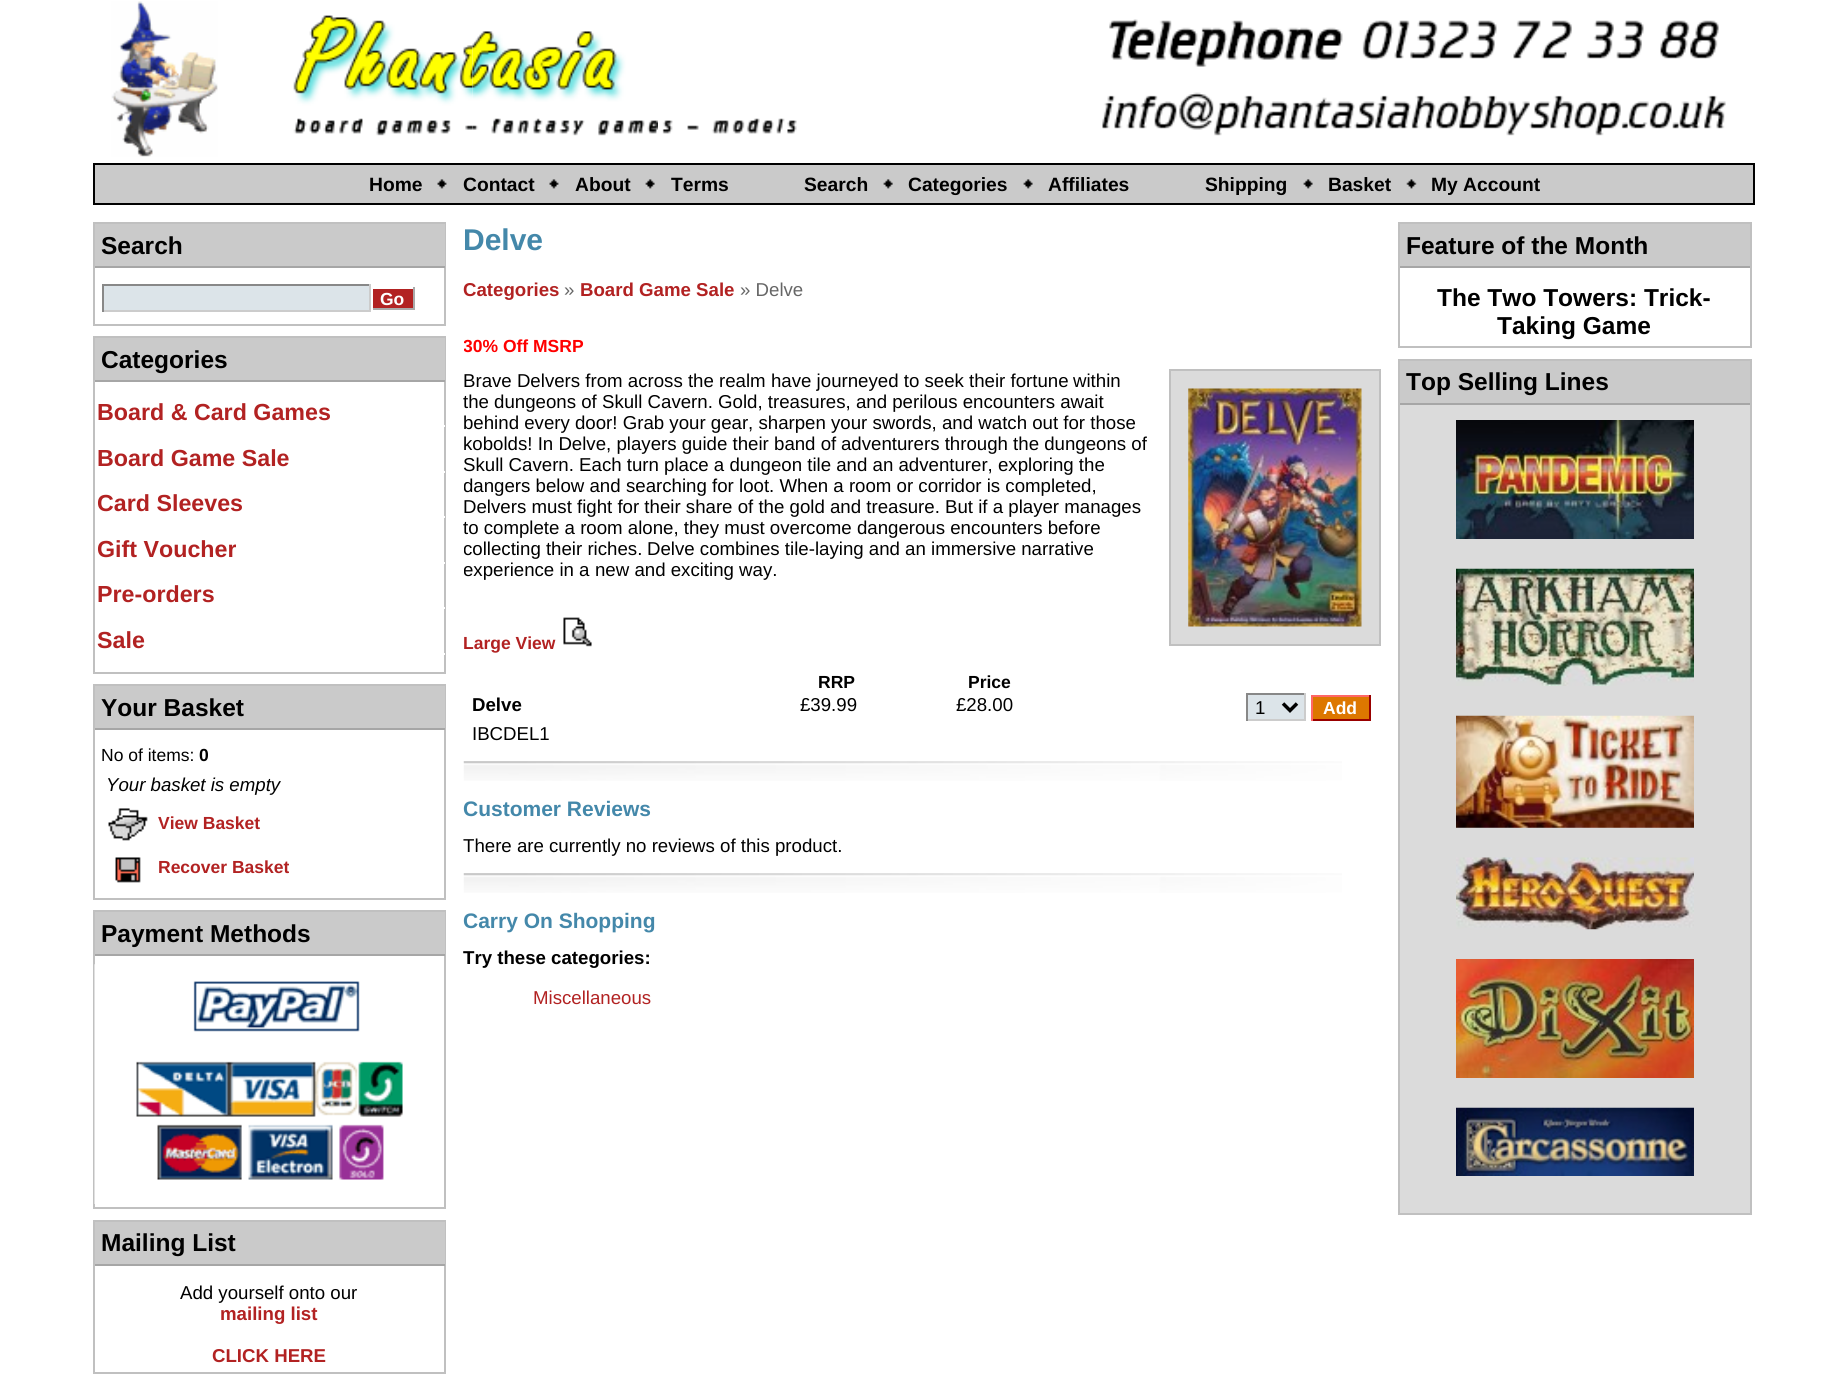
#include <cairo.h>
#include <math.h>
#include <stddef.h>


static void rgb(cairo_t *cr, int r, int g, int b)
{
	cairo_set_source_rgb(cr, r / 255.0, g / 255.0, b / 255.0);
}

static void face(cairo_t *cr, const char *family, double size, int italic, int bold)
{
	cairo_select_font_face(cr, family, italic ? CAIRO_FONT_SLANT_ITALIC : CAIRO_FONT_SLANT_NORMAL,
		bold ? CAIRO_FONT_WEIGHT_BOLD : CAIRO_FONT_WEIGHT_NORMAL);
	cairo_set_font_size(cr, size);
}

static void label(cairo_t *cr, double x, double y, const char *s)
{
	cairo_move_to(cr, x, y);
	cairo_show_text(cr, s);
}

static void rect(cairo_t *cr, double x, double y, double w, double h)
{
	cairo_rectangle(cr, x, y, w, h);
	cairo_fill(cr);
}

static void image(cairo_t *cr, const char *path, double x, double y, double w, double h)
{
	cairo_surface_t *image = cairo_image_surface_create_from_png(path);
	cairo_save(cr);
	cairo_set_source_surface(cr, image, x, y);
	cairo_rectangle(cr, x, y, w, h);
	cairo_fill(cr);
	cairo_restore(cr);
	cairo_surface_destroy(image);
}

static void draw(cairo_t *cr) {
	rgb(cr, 255, 255, 255);
	cairo_paint(cr);
	image(cr, "image0.png", 111, 1, 107, 156);
	image(cr, "image1.png", 293, 15, 180, 121);
	image(cr, "image2.png", 472, 31, 186, 105);
	image(cr, "image3.png", 662, 118, 135, 16);
	image(cr, "image4.png", 1102, 19, 624, 117);
	rgb(cr, 202, 202, 202);
	cairo_rectangle(cr, 94, 164, 1660, 40);
	cairo_fill_preserve(cr);
	rgb(cr, 0, 0, 0);
	cairo_stroke(cr);
	face(cr, "Liberation Sans", 19.25, 0, 1);
	label(cr, 369, 191, "Home");
	image(cr, "image5.png", 437, 179, 10, 10);
	label(cr, 463, 191, "Contact");
	image(cr, "image6.png", 549, 179, 10, 10);
	label(cr, 575, 191, "About");
	image(cr, "image7.png", 645, 179, 10, 10);
	label(cr, 671, 191, "Terms");
	label(cr, 804, 191, "Search");
	image(cr, "image8.png", 883, 179, 10, 10);
	label(cr, 908, 191, "Categories");
	image(cr, "image7.png", 1023, 179, 10, 10);
	label(cr, 1048, 191, "Affiliates");
	label(cr, 1205, 191, "Shipping");
	image(cr, "image7.png", 1303, 179, 10, 10);
	label(cr, 1328, 191, "Basket");
	image(cr, "image9.png", 1406, 179, 11, 10);
	label(cr, 1431, 191, "My Account");
	cairo_rectangle(cr, 94, 223, 351, 102);
	rgb(cr, 192, 192, 192);
	cairo_stroke(cr);
	rgb(cr, 202, 202, 202);
	rect(cr, 95, 224, 350, 42);
	rgb(cr, 166, 166, 166);
	rect(cr, 95, 266, 350, 2);
	face(cr, "Liberation Sans", 24.5, 0, 1);
	rgb(cr, 0, 0, 0);
	label(cr, 101, 254, "Search");
	rgb(cr, 220, 228, 233);
	rect(cr, 104, 286, 265, 24);
	rgb(cr, 136, 136, 136);
	rect(cr, 102, 284, 269, 2);
	rgb(cr, 204, 204, 204);
	rect(cr, 369, 284, 2, 28);
	rect(cr, 102, 310, 269, 2);
	rgb(cr, 136, 136, 136);
	rect(cr, 102, 284, 2, 28);
	rgb(cr, 178, 34, 34);
	rect(cr, 373, 289, 40, 19);
	rgb(cr, 170, 170, 170);
	rect(cr, 413, 287, 2, 23);
	rect(cr, 371, 308, 44, 2);
	rgb(cr, 255, 255, 255);
	rect(cr, 371, 308, 2, 2);
	face(cr, "Liberation Sans", 17.5, 0, 1);
	label(cr, 380, 305, "Go");
	cairo_rectangle(cr, 94, 337, 351, 336);
	rgb(cr, 192, 192, 192);
	cairo_stroke(cr);
	rgb(cr, 202, 202, 202);
	rect(cr, 95, 338, 350, 42);
	rgb(cr, 166, 166, 166);
	rect(cr, 95, 380, 350, 2);
	face(cr, "Liberation Sans", 24.5, 0, 1);
	rgb(cr, 0, 0, 0);
	label(cr, 101, 368, "Categories");
	rgb(cr, 255, 255, 255);
	rect(cr, 444, 425, 1, 2);
	face(cr, "Liberation Sans", 23.25, 0, 1);
	rgb(cr, 178, 34, 34);
	label(cr, 97, 420, "Board & Card Games");
	rgb(cr, 255, 255, 255);
	rect(cr, 444, 471, 1, 2);
	rgb(cr, 178, 34, 34);
	label(cr, 97, 466, "Board Game Sale");
	rgb(cr, 255, 255, 255);
	rect(cr, 444, 516, 1, 2);
	rgb(cr, 178, 34, 34);
	label(cr, 97, 511, "Card Sleeves");
	rgb(cr, 255, 255, 255);
	rect(cr, 444, 562, 1, 2);
	rgb(cr, 178, 34, 34);
	label(cr, 97, 557, "Gift Voucher");
	rgb(cr, 255, 255, 255);
	rect(cr, 444, 607, 1, 2);
	rgb(cr, 178, 34, 34);
	label(cr, 97, 602, "Pre-orders");
	rgb(cr, 255, 255, 255);
	rect(cr, 444, 653, 1, 2);
	rgb(cr, 178, 34, 34);
	label(cr, 97, 648, "Sale");
	cairo_rectangle(cr, 94, 685, 351, 214);
	rgb(cr, 192, 192, 192);
	cairo_stroke(cr);
	rgb(cr, 202, 202, 202);
	rect(cr, 95, 686, 350, 42);
	rgb(cr, 166, 166, 166);
	rect(cr, 95, 728, 350, 2);
	face(cr, "Liberation Sans", 24.5, 0, 1);
	rgb(cr, 0, 0, 0);
	label(cr, 101, 716, "Your Basket");
	face(cr, "Liberation Sans", 17.5, 0, 0);
	label(cr, 101, 761, "No of items:");
	face(cr, "Liberation Sans", 17.5, 0, 1);
	label(cr, 199, 761, "0");
	face(cr, "Liberation Sans", 18.65, 1, 0);
	label(cr, 106, 791, "Your basket is empty");
	image(cr, "image10.png", 108, 808, 40, 33);
	face(cr, "Liberation Sans", 17.5, 0, 1);
	rgb(cr, 178, 34, 34);
	label(cr, 158, 829, "View Basket");
	image(cr, "image11.png", 115, 857, 26, 26);
	label(cr, 158, 873, "Recover Basket");
	cairo_rectangle(cr, 94, 911, 351, 297);
	rgb(cr, 192, 192, 192);
	cairo_stroke(cr);
	rgb(cr, 202, 202, 202);
	rect(cr, 95, 912, 350, 42);
	rgb(cr, 166, 166, 166);
	rect(cr, 95, 954, 350, 2);
	face(cr, "Liberation Sans", 24.5, 0, 1);
	rgb(cr, 0, 0, 0);
	label(cr, 101, 942, "Payment Methods");
	image(cr, "image12.png", 94, 964, 309, 240);
	cairo_rectangle(cr, 94, 1221, 351, 152);
	rgb(cr, 192, 192, 192);
	cairo_stroke(cr);
	rgb(cr, 202, 202, 202);
	rect(cr, 95, 1222, 350, 42);
	rgb(cr, 166, 166, 166);
	rect(cr, 95, 1264, 350, 2);
	rgb(cr, 0, 0, 0);
	label(cr, 101, 1251, "Mailing List");
	face(cr, "Liberation Sans", 18.65, 0, 0);
	label(cr, 180, 1299, "Add yourself onto our");
	face(cr, "Liberation Sans", 18.65, 0, 1);
	rgb(cr, 178, 34, 34);
	label(cr, 220, 1320, "mailing list");
	label(cr, 212, 1362, "CLICK HERE");
	face(cr, "Liberation Sans", 30, 0, 1);
	rgb(cr, 68, 136, 170);
	label(cr, 463, 250, "Delve");
	face(cr, "Liberation Sans", 18.65, 0, 1);
	rgb(cr, 178, 34, 34);
	label(cr, 463, 296, "Categories");
	face(cr, "Liberation Sans", 18.65, 0, 0);
	rgb(cr, 102, 102, 102);
	label(cr, 564, 296, "»");
	face(cr, "Liberation Sans", 18.65, 0, 1);
	rgb(cr, 178, 34, 34);
	label(cr, 580, 296, "Board Game Sale");
	face(cr, "Liberation Sans", 18.65, 0, 0);
	rgb(cr, 102, 102, 102);
	label(cr, 740, 296, "» Delve");
	cairo_save(cr);
	cairo_rectangle(cr, 464, 322, 917, 348);
	cairo_clip(cr);
	face(cr, "Liberation Sans", 17.5, 0, 1);
	rgb(cr, 255, 0, 0);
	label(cr, 463, 352, "30% Off MSRP");
	cairo_restore(cr);
	rgb(cr, 0, 0, 0);
	label(cr, 463, 387, "Brave Delvers from across the realm");
	label(cr, 771, 387, "have journeyed to seek their fortune");
	label(cr, 1073, 387, "within");
	label(cr, 463, 408, "the dungeons of Skull Cavern. Gold, treasures, and perilous encounters await");
	label(cr, 463, 429, "behind every door! Grab your gear, sharpen your swords,");
	label(cr, 942, 429, "and watch out for those");
	label(cr, 463, 450, "kobolds! In Delve, players guide their band of");
	label(cr, 841, 450, "adventurers through the dungeons of");
	label(cr, 463, 471, "Skull Cavern. Each turn place a dungeon tile and an adventurer, exploring the");
	cairo_save(cr);
	cairo_rectangle(cr, 464, 322, 917, 348);
	cairo_clip(cr);
	label(cr, 463, 492, "dangers below and");
	cairo_restore(cr);
	label(cr, 626, 492, "searching for loot. When a room or corridor is completed,");
	label(cr, 463, 513, "Delvers must fight for their share of the gold and treasure. But if a player manages");
	label(cr, 463, 534, "to complete a room alone, they must overcome dangerous encounters before");
	cairo_save(cr);
	cairo_rectangle(cr, 464, 322, 917, 348);
	cairo_clip(cr);
	label(cr, 463, 555, "collecting their riches.");
	cairo_restore(cr);
	label(cr, 647, 555, "Delve combines tile-laying and an immersive narrative");
	cairo_save(cr);
	cairo_rectangle(cr, 464, 322, 917, 348);
	cairo_clip(cr);
	label(cr, 463, 576, "experience in a");
	cairo_restore(cr);
	label(cr, 595, 576, "new and exciting way.");
	rgb(cr, 219, 219, 219);
	cairo_rectangle(cr, 1170, 370, 210, 275);
	cairo_fill_preserve(cr);
	rgb(cr, 192, 192, 192);
	cairo_stroke(cr);
	image(cr, "image13.png", 1188, 388, 174, 239);
	face(cr, "Liberation Sans", 17.5, 0, 1);
	rgb(cr, 178, 34, 34);
	label(cr, 463, 649, "Large View");
	image(cr, "image14.png", 563, 617, 29, 30);
	rgb(cr, 0, 0, 0);
	label(cr, 818, 688, "RRP");
	label(cr, 968, 688, "Price");
	face(cr, "Liberation Sans", 18.65, 0, 1);
	label(cr, 472, 711, "Delve");
	face(cr, "Liberation Sans", 18.65, 0, 0);
	label(cr, 472, 740, "IBCDEL1");
	label(cr, 800, 711, "£39.99");
	label(cr, 956, 711, "£28.00");
	rgb(cr, 220, 228, 233);
	rect(cr, 1248, 695, 56, 24);
	rgb(cr, 136, 136, 136);
	rect(cr, 1246, 693, 60, 2);
	rgb(cr, 204, 204, 204);
	rect(cr, 1304, 693, 2, 28);
	rect(cr, 1246, 719, 60, 2);
	rgb(cr, 136, 136, 136);
	rect(cr, 1246, 693, 2, 28);
	cairo_new_path(cr);
	cairo_move_to(cr, 1283, 703.5);
	cairo_line_to(cr, 1290, 710.5);
	cairo_line_to(cr, 1297, 703.5);
	rgb(cr, 0, 0, 0);
	cairo_set_line_width(cr, 3.5);
	cairo_stroke(cr);
	label(cr, 1255, 714, "1");
	rgb(cr, 221, 119, 0);
	rect(cr, 1313, 697, 56, 22);
	rgb(cr, 255, 102, 102);
	rect(cr, 1311, 695, 59, 2);
	rgb(cr, 153, 0, 0);
	rect(cr, 1369, 695, 2, 26);
	rect(cr, 1311, 719, 59, 2);
	rgb(cr, 255, 102, 102);
	rect(cr, 1311, 695, 2, 26);
	face(cr, "Liberation Sans", 17.5, 0, 1);
	rgb(cr, 255, 255, 255);
	label(cr, 1323, 714, "Add");
	image(cr, "image15.png", 463, 761, 879, 20);
	face(cr, "Liberation Sans", 21, 0, 1);
	rgb(cr, 68, 136, 170);
	label(cr, 463, 816, "Customer Reviews");
	face(cr, "Liberation Sans", 18.65, 0, 0);
	rgb(cr, 0, 0, 0);
	label(cr, 463, 852, "There are currently no reviews of this product.");
	image(cr, "image15.png", 463, 873, 879, 20);
	face(cr, "Liberation Sans", 21, 0, 1);
	rgb(cr, 68, 136, 170);
	label(cr, 463, 928, "Carry On Shopping");
	face(cr, "Liberation Sans", 18.65, 0, 1);
	rgb(cr, 0, 0, 0);
	label(cr, 463, 964, "Try these categories:");
	face(cr, "Liberation Sans", 18.65, 0, 0);
	rgb(cr, 178, 34, 34);
	label(cr, 533, 1004, "Miscellaneous");
	cairo_rectangle(cr, 1399, 223, 352, 124);
	rgb(cr, 192, 192, 192);
	cairo_set_line_width(cr, 2);
	cairo_stroke(cr);
	rgb(cr, 202, 202, 202);
	rect(cr, 1400, 224, 350, 42);
	rgb(cr, 166, 166, 166);
	rect(cr, 1400, 266, 350, 2);
	face(cr, "Liberation Sans", 24.5, 0, 1);
	rgb(cr, 0, 0, 0);
	label(cr, 1406, 254, "Feature of the Month");
	label(cr, 1437, 306, "The Two Towers: Trick-");
	label(cr, 1497, 334, "Taking Game");
	rgb(cr, 219, 219, 219);
	rect(cr, 1400, 405, 350, 808);
	cairo_rectangle(cr, 1399, 360, 352, 854);
	rgb(cr, 192, 192, 192);
	cairo_stroke(cr);
	rgb(cr, 202, 202, 202);
	rect(cr, 1400, 361, 350, 42);
	rgb(cr, 166, 166, 166);
	rect(cr, 1400, 403, 350, 2);
	rgb(cr, 0, 0, 0);
	label(cr, 1406, 390, "Top Selling Lines");
	image(cr, "image16.png", 1456, 420, 238, 119);
	image(cr, "image17.png", 1456, 568, 238, 118);
	image(cr, "image18.png", 1456, 715, 238, 113);
	image(cr, "image19.png", 1456, 857, 238, 73);
	image(cr, "image20.png", 1456, 959, 238, 119);
	image(cr, "image21.png", 1456, 1107, 238, 69);
}

int main(void) {
	cairo_surface_t *surface = cairo_image_surface_create(CAIRO_FORMAT_RGB24, 1845, 1376);
	cairo_t *cr = cairo_create(surface);
	cairo_font_options_t *options = cairo_font_options_create();
	cairo_font_options_set_hint_metrics(options, CAIRO_HINT_METRICS_OFF);
	cairo_font_options_set_hint_style(options, CAIRO_HINT_STYLE_NONE);
	cairo_set_font_options(cr, options);
	cairo_set_miter_limit(cr, 4);
	draw(cr);
	cairo_surface_write_to_png(surface, "render.png");
	cairo_font_options_destroy(options);
	cairo_destroy(cr);
	cairo_surface_destroy(surface);
	return 0;
}
